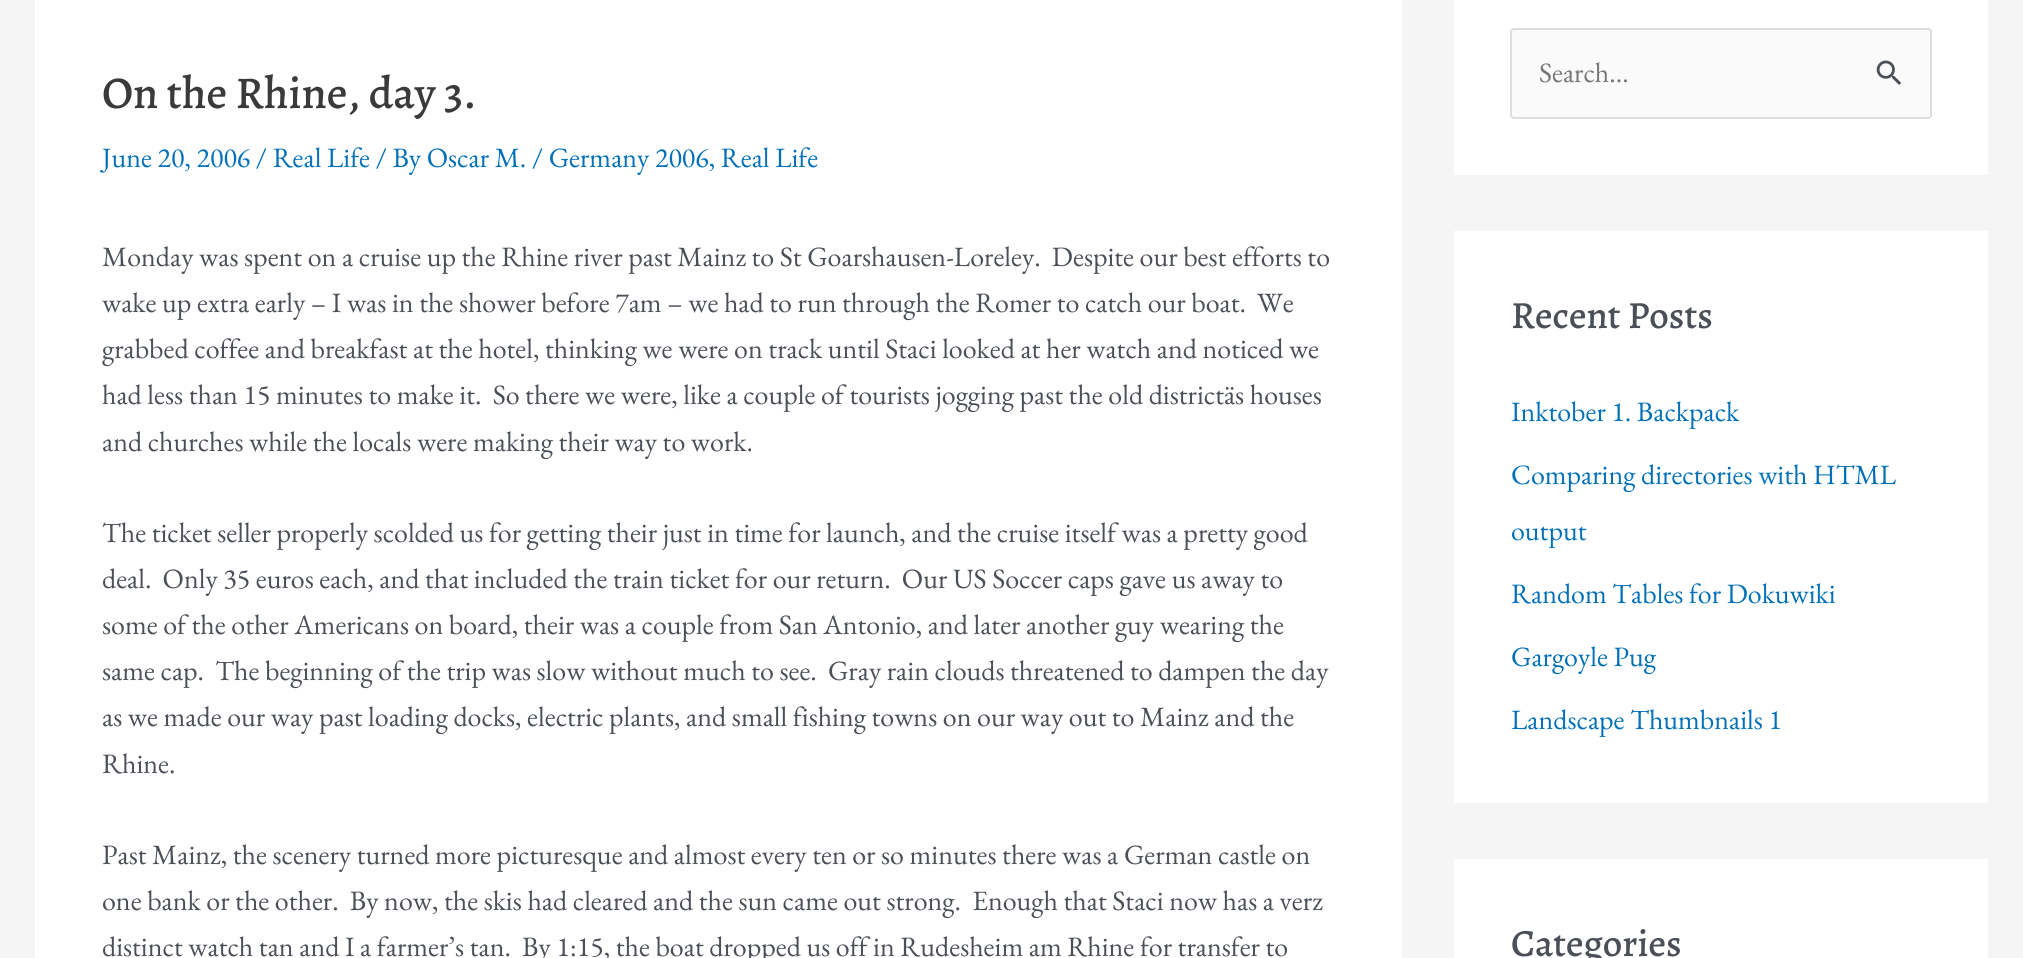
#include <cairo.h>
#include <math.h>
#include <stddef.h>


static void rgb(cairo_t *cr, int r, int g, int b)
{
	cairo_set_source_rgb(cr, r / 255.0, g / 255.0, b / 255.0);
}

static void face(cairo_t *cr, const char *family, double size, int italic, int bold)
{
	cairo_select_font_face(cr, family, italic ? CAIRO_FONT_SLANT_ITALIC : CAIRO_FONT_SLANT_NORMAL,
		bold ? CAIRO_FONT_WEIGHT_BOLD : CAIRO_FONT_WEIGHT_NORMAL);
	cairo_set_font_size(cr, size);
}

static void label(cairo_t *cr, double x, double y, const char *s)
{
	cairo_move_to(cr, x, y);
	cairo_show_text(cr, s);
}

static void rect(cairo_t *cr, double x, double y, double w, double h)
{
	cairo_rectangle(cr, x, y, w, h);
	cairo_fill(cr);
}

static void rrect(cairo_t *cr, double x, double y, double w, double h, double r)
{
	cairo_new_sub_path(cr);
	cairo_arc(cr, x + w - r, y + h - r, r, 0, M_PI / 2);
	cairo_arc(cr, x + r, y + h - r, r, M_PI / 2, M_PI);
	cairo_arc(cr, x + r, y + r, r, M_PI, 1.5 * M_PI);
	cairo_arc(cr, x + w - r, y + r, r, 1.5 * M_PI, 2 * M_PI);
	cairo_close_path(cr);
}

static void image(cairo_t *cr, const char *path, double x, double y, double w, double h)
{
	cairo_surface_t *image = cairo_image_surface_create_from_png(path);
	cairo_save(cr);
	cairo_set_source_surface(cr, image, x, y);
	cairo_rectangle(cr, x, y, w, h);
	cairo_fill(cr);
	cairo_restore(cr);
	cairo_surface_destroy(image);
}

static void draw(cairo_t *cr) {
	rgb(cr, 245, 245, 245);
	cairo_paint(cr);
	rgb(cr, 255, 255, 255);
	rect(cr, 35, 0, 1367, 958);
	face(cr, "Alegreya Medium", 45.5, 0, 0);
	rgb(cr, 58, 58, 58);
	label(cr, 102, 108, "On the Rhine, day 3.");
	face(cr, "EB Garamond", 28, 0, 0);
	rgb(cr, 1, 112, 185);
	label(cr, 102, 167, "June 20, 2006 / Real Life / By Oscar M. / Germany 2006, Real Life");
	rgb(cr, 75, 79, 88);
	label(cr, 102, 266, "Monday was spent on a cruise up the Rhine river past Mainz to St Goarshausen-Loreley.  Despite our best efforts to");
	label(cr, 102, 312, "wake up extra early – I was in the shower before 7am – we had to run through the Romer to catch our boat.  We");
	label(cr, 102, 358, "grabbed coffee and breakfast at the hotel, thinking we were on track until Staci looked at her watch and noticed we");
	label(cr, 102, 404, "had less than 15 minutes to make it.  So there we were, like a couple of tourists jogging past the old districtäs houses");
	label(cr, 102, 451, "and churches while the locals were making their way to work.");
	label(cr, 102, 542, "The ticket seller properly scolded us for getting their just in time for launch, and the cruise itself was a pretty good");
	label(cr, 102, 588, "deal.  Only 35 euros each, and that included the train ticket for our return.  Our US Soccer caps gave us away to");
	label(cr, 102, 634, "some of the other Americans on board, their was a couple from San Antonio, and later another guy wearing the");
	label(cr, 102, 680, "same cap.  The beginning of the trip was slow without much to see.  Gray rain clouds threatened to dampen the day");
	label(cr, 102, 726, "as we made our way past loading docks, electric plants, and small fishing towns on our way out to Mainz and the");
	label(cr, 102, 773, "Rhine.");
	label(cr, 102, 864, "Past Mainz, the scenery turned more picturesque and almost every ten or so minutes there was a German castle on");
	label(cr, 102, 910, "one bank or the other.  By now, the skis had cleared and the sun came out strong.  Enough that Staci now has a verz");
	label(cr, 102, 956, "distinct watch tan and I a farmer’s tan.  By 1:15, the boat dropped us off in Rudesheim am Rhine for transfer to");
	rgb(cr, 255, 255, 255);
	rect(cr, 1454, 0, 534, 175);
	rgb(cr, 250, 250, 250);
	rrect(cr, 1511, 29, 420, 89, 3);
	cairo_fill_preserve(cr);
	rgb(cr, 221, 221, 221);
	cairo_stroke(cr);
	rgb(cr, 117, 117, 117);
	label(cr, 1539, 82, "Search...");
	image(cr, "image0.png", 1876, 60, 26, 25);
	rgb(cr, 255, 255, 255);
	rect(cr, 1454, 231, 534, 572);
	face(cr, "Alegreya Medium", 38.5, 0, 0);
	rgb(cr, 75, 79, 88);
	label(cr, 1511, 328, "Recent Posts");
	face(cr, "EB Garamond", 28, 0, 0);
	rgb(cr, 1, 112, 185);
	label(cr, 1511, 421, "Inktober 1. Backpack");
	label(cr, 1511, 484, "Comparing directories with HTML");
	label(cr, 1511, 540, "output");
	label(cr, 1511, 603, "Random Tables for Dokuwiki");
	label(cr, 1511, 666, "Gargoyle Pug");
	label(cr, 1511, 729, "Landscape Thumbnails 1");
	rgb(cr, 255, 255, 255);
	rect(cr, 1454, 859, 534, 99);
	face(cr, "Alegreya Medium", 38.5, 0, 0);
	rgb(cr, 75, 79, 88);
	label(cr, 1511, 956, "Categories");
}

int main(void) {
	cairo_surface_t *surface = cairo_image_surface_create(CAIRO_FORMAT_RGB24, 2023, 958);
	cairo_t *cr = cairo_create(surface);
	cairo_font_options_t *options = cairo_font_options_create();
	cairo_font_options_set_hint_metrics(options, CAIRO_HINT_METRICS_OFF);
	cairo_font_options_set_hint_style(options, CAIRO_HINT_STYLE_NONE);
	cairo_set_font_options(cr, options);
	cairo_set_miter_limit(cr, 4);
	draw(cr);
	cairo_surface_write_to_png(surface, "render.png");
	cairo_font_options_destroy(options);
	cairo_destroy(cr);
	cairo_surface_destroy(surface);
	return 0;
}
